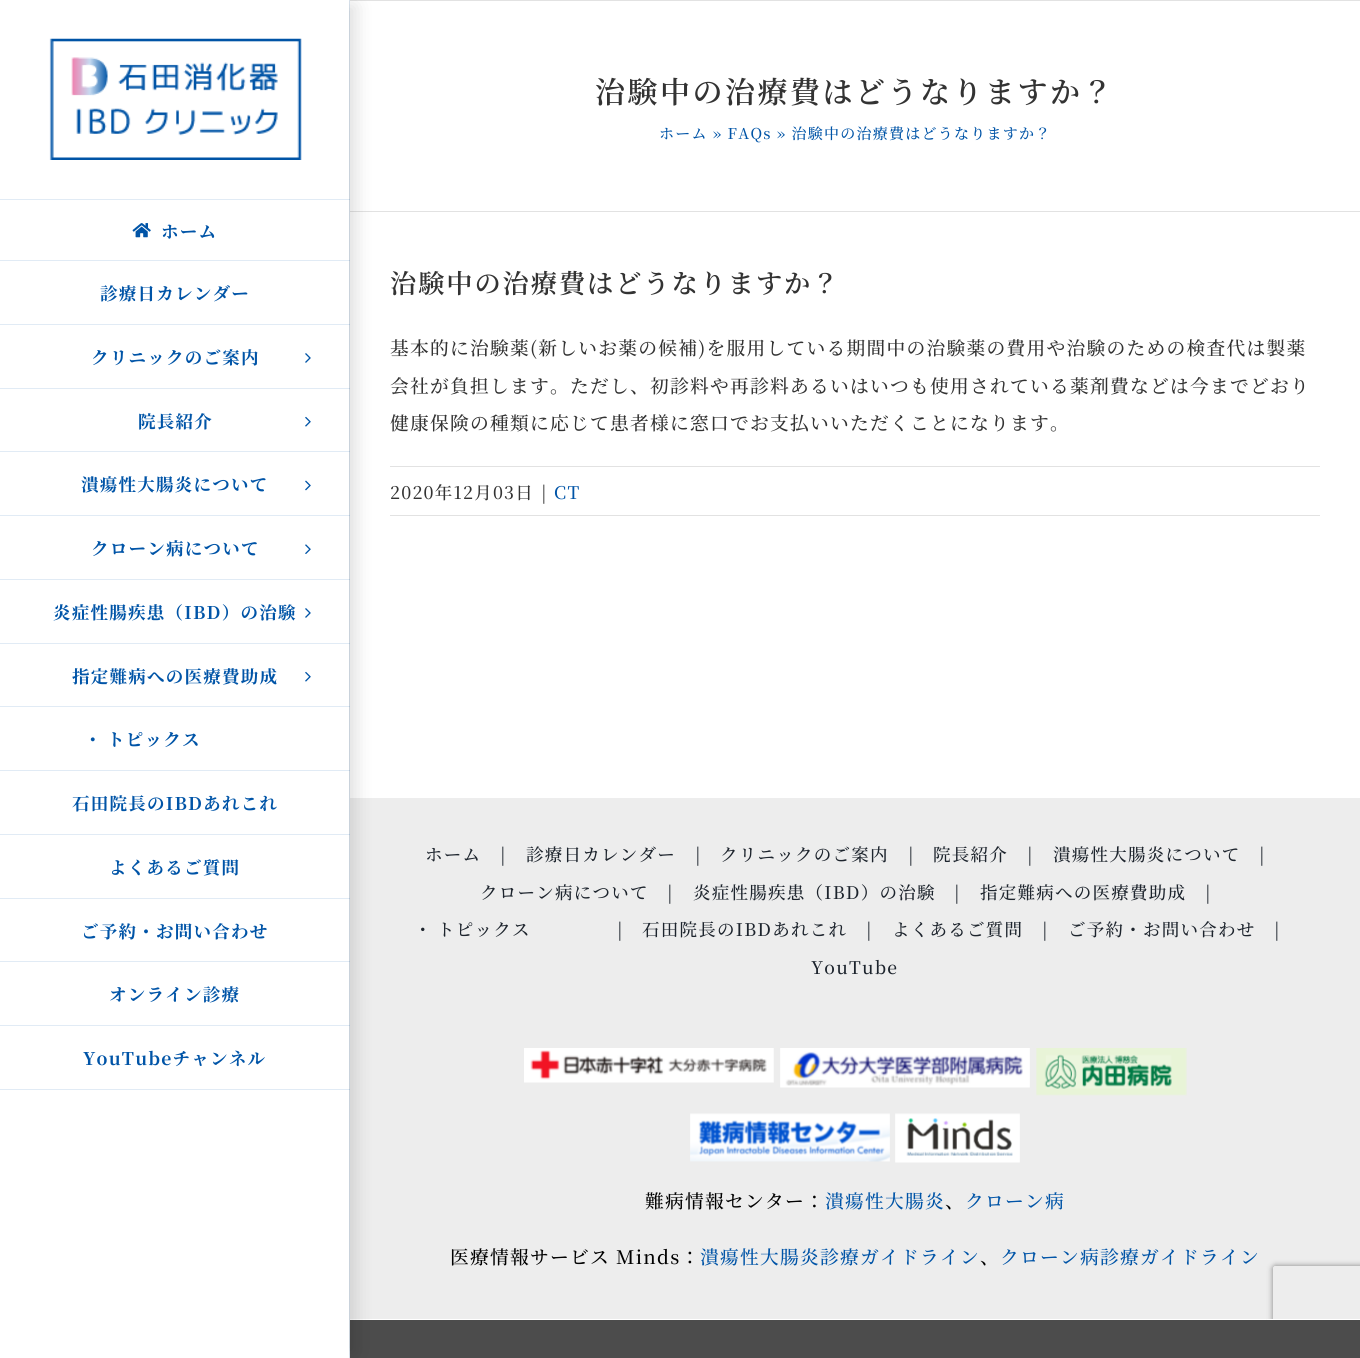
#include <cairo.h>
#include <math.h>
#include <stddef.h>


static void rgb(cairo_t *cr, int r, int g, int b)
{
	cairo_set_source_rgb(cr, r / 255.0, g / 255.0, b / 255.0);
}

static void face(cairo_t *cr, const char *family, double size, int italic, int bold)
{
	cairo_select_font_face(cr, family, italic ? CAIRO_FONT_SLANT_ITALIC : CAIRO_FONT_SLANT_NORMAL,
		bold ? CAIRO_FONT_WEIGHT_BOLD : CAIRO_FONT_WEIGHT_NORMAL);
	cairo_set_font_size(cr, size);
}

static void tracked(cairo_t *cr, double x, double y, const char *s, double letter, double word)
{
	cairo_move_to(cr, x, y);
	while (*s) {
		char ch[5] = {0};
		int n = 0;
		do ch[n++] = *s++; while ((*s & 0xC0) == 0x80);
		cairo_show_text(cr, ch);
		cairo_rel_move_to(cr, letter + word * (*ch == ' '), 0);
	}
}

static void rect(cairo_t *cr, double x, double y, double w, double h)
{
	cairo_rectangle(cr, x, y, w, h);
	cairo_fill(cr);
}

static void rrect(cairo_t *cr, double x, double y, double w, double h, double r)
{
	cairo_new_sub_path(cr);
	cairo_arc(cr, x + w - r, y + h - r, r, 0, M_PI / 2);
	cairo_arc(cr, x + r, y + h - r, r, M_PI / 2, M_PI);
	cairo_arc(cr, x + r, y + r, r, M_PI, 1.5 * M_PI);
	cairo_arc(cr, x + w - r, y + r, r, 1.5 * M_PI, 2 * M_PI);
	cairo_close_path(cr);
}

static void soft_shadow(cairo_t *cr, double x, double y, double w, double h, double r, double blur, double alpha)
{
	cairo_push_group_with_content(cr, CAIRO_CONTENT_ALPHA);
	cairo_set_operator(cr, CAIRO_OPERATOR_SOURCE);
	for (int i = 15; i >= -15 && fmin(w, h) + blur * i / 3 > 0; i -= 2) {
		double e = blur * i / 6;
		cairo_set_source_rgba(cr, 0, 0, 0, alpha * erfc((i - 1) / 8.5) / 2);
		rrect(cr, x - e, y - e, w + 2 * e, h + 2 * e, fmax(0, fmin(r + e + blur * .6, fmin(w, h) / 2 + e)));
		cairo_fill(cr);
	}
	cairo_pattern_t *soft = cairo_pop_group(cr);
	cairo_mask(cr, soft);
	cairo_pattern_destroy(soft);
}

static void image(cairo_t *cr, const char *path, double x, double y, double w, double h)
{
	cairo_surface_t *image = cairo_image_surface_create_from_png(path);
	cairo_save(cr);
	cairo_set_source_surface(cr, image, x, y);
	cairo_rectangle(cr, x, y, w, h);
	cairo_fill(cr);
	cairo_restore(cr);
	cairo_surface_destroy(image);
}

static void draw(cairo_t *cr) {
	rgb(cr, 255, 255, 255);
	cairo_paint(cr);
	rgb(cr, 226, 226, 226);
	rect(cr, 350, 0, 1010, 1);
	rect(cr, 350, 211, 1010, 1);
	face(cr, "Noto Serif JP SemiBold", 30, 0, 0);
	rgb(cr, 51, 51, 51);
	tracked(cr, 595, 103, "治験中の治療費はどうなりますか？", 2.5, 0);
	face(cr, "Noto Serif JP Medium", 15, 0, 0);
	rgb(cr, 0, 84, 167);
	tracked(cr, 659, 139, "ホーム » FAQs » 治験中の治療費はどうなりますか？", 1.25, 0);
	image(cr, "image0.png", 49, 38, 253, 122);
	rgb(cr, 224, 234, 244);
	rect(cr, 349, 0, 1, 1358);
	rgb(cr, 237, 237, 237);
	rect(cr, 350, 798, 1010, 521);
	cairo_save(cr);
	cairo_set_fill_rule(cr, CAIRO_FILL_RULE_EVEN_ODD);
	cairo_new_path(cr);
	cairo_move_to(cr, 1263, 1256);
	cairo_line_to(cr, 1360, 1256);
	cairo_line_to(cr, 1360, 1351);
	cairo_line_to(cr, 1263, 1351);
	cairo_close_path(cr);
	cairo_move_to(cr, 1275.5, 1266);
	cairo_line_to(cr, 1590.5, 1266);
	cairo_curve_to(cr, 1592, 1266, 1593, 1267, 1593, 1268.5);
	cairo_line_to(cr, 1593, 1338.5);
	cairo_curve_to(cr, 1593, 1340, 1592, 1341, 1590.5, 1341);
	cairo_line_to(cr, 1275.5, 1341);
	cairo_curve_to(cr, 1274, 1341, 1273, 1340, 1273, 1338.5);
	cairo_line_to(cr, 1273, 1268.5);
	cairo_curve_to(cr, 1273, 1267, 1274, 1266, 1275.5, 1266);
	cairo_close_path(cr);
	cairo_clip(cr);
	rgb(cr, 128, 128, 128);
	soft_shadow(cr, 1273, 1266, 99, 75, 2.5, 3, 1);
	cairo_restore(cr);
	rgb(cr, 76, 76, 76);
	rect(cr, 350, 1320, 1010, 38);
	cairo_save(cr);
	cairo_set_fill_rule(cr, CAIRO_FILL_RULE_EVEN_ODD);
	cairo_new_path(cr);
	cairo_move_to(cr, 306, 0);
	cairo_line_to(cr, 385, 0);
	cairo_line_to(cr, 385, 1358);
	cairo_line_to(cr, 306, 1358);
	cairo_close_path(cr);
	cairo_move_to(cr, 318, 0);
	cairo_line_to(cr, 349, 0);
	cairo_line_to(cr, 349, 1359);
	cairo_line_to(cr, 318, 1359);
	cairo_close_path(cr);
	cairo_clip(cr);
	rgb(cr, 0, 0, 0);
	soft_shadow(cr, 336, 6, 19, 1347, 0, 9.5, 0.14);
	cairo_restore(cr);
	cairo_set_source_rgba(cr, 0, 0.329, 0.655, 0.12);
	rect(cr, 0, 199, 350, 1);
	rect(cr, 0, 260, 350, 1);
	image(cr, "image1.png", 132, 223, 19, 15);
	face(cr, "Noto Serif JP", 17.5, 0, 1);
	rgb(cr, 0, 84, 167);
	tracked(cr, 161, 238, "ホーム", 1.25, 0);
	cairo_set_source_rgba(cr, 0, 0.329, 0.655, 0.12);
	rect(cr, 0, 324, 350, 1);
	rgb(cr, 0, 84, 167);
	tracked(cr, 100, 300, "診療日カレンダー", 1.25, 0);
	cairo_set_source_rgba(cr, 0, 0.329, 0.655, 0.12);
	rect(cr, 0, 388, 350, 1);
	rgb(cr, 0, 84, 167);
	tracked(cr, 91, 364, "クリニックのご案内", 1.25, 0);
	image(cr, "image2.png", 305, 353, 6, 10);
	cairo_set_source_rgba(cr, 0, 0.329, 0.655, 0.12);
	rect(cr, 0, 451, 350, 1);
	rgb(cr, 0, 84, 167);
	tracked(cr, 138, 428, "院長紹介", 1.25, 0);
	image(cr, "image3.png", 305, 416, 6, 11);
	cairo_set_source_rgba(cr, 0, 0.329, 0.655, 0.12);
	rect(cr, 0, 515, 350, 1);
	rgb(cr, 0, 84, 167);
	tracked(cr, 81, 491, "潰瘍性大腸炎について", 1.25, 0);
	image(cr, "image4.png", 305, 480, 6, 11);
	cairo_set_source_rgba(cr, 0, 0.329, 0.655, 0.12);
	rect(cr, 0, 579, 350, 1);
	rgb(cr, 0, 84, 167);
	tracked(cr, 91, 555, "クローン病について", 1.25, 0);
	image(cr, "image5.png", 305, 544, 6, 10);
	cairo_set_source_rgba(cr, 0, 0.329, 0.655, 0.12);
	rect(cr, 0, 643, 350, 1);
	rgb(cr, 0, 84, 167);
	tracked(cr, 53, 619, "炎症性腸疾患（IBD）の治験", 1.25, 0);
	image(cr, "image2.png", 305, 608, 6, 10);
	cairo_set_source_rgba(cr, 0, 0.329, 0.655, 0.12);
	rect(cr, 0, 706, 350, 1);
	rgb(cr, 0, 84, 167);
	tracked(cr, 72, 683, "指定難病への医療費助成", 1.25, 0);
	image(cr, "image3.png", 305, 671, 6, 11);
	cairo_set_source_rgba(cr, 0, 0.329, 0.655, 0.12);
	rect(cr, 0, 770, 350, 1);
	rgb(cr, 0, 84, 167);
	tracked(cr, 84, 746, "・", 1.25, 0);
	tracked(cr, 107, 746, "トピックス", 1.25, 0);
	cairo_set_source_rgba(cr, 0, 0.329, 0.655, 0.12);
	rect(cr, 0, 834, 350, 1);
	rgb(cr, 0, 84, 167);
	tracked(cr, 72, 810, "石田院長のIBDあれこれ", 1.25, 0);
	cairo_set_source_rgba(cr, 0, 0.329, 0.655, 0.12);
	rect(cr, 0, 898, 350, 1);
	rgb(cr, 0, 84, 167);
	tracked(cr, 109, 874, "よくあるご質問", 1.25, 0);
	cairo_set_source_rgba(cr, 0, 0.329, 0.655, 0.12);
	rect(cr, 0, 961, 350, 1);
	rgb(cr, 0, 84, 167);
	tracked(cr, 81, 938, "ご予約・お問い合わせ", 1.25, 0);
	cairo_set_source_rgba(cr, 0, 0.329, 0.655, 0.12);
	rect(cr, 0, 1025, 350, 1);
	rgb(cr, 0, 84, 167);
	tracked(cr, 109, 1001, "オンライン診療", 1.25, 0);
	cairo_set_source_rgba(cr, 0, 0.329, 0.655, 0.12);
	rect(cr, 0, 1089, 350, 1);
	rgb(cr, 0, 84, 167);
	tracked(cr, 83, 1065, "YouTubeチャンネル", 1.25, 0);
	face(cr, "Noto Serif JP SemiBold", 26.25, 0, 0);
	rgb(cr, 51, 51, 51);
	tracked(cr, 390, 293, "治験中の治療費はどうなりますか？", 1.9, 0);
	face(cr, "Noto Serif JP Medium", 18.75, 0, 0);
	tracked(cr, 390, 355, "基本的に治験薬(新しいお薬の候補)を服用している期間中の治験薬の費用や治験のための検査代は製薬", 1.25, 0);
	tracked(cr, 390, 393, "会社が負担します。ただし、初診料や再診料あるいはいつも使用されている薬剤費などは今までどおり", 1.25, 0);
	tracked(cr, 390, 430, "健康保険の種類に応じて患者様に窓口でお支払いいただくことになります。", 1.25, 0);
	rgb(cr, 226, 226, 226);
	rect(cr, 390, 466, 930, 1);
	rect(cr, 390, 515, 930, 1);
	face(cr, "Noto Serif JP Medium", 17.5, 0, 0);
	rgb(cr, 51, 51, 51);
	tracked(cr, 390, 499, "2020年12月03日", 1.25, 0);
	tracked(cr, 541, 499, "|", 1.25, 0);
	rgb(cr, 0, 84, 167);
	tracked(cr, 554, 499, "CT", 1.25, 0);
	rgb(cr, 29, 36, 45);
	tracked(cr, 425, 861, "ホーム", 1.25, 0);
	tracked(cr, 500, 861, "|", 1.25, 0);
	tracked(cr, 526, 861, "診療日カレンダー", 1.25, 0);
	tracked(cr, 695, 861, "|", 1.25, 0);
	tracked(cr, 720, 861, "クリニックのご案内", 1.25, 0);
	tracked(cr, 908, 861, "|", 1.25, 0);
	tracked(cr, 933, 861, "院長紹介", 1.25, 0);
	tracked(cr, 1027, 861, "|", 1.25, 0);
	tracked(cr, 1053, 861, "潰瘍性大腸炎について", 1.25, 0);
	tracked(cr, 1259, 861, "|", 1.25, 0);
	tracked(cr, 480, 899, "クローン病について", 1.25, 0);
	tracked(cr, 667, 899, "|", 1.25, 0);
	tracked(cr, 693, 899, "炎症性腸疾患（IBD）の治験", 1.25, 0);
	tracked(cr, 954, 899, "|", 1.25, 0);
	tracked(cr, 980, 899, "指定難病への医療費助成", 1.25, 0);
	tracked(cr, 1205, 899, "|", 1.25, 0);
	tracked(cr, 414, 936, "・", 1.25, 0);
	tracked(cr, 437, 936, "トピックス", 1.25, 0);
	tracked(cr, 617, 936, "|", 1.25, 0);
	tracked(cr, 642, 936, "石田院長のIBDあれこれ", 1.25, 0);
	tracked(cr, 866, 936, "|", 1.25, 0);
	tracked(cr, 892, 936, "よくあるご質問", 1.25, 0);
	tracked(cr, 1042, 936, "|", 1.25, 0);
	tracked(cr, 1068, 936, "ご予約・お問い合わせ", 1.25, 0);
	tracked(cr, 1274, 936, "|", 1.25, 0);
	tracked(cr, 811, 974, "YouTube", 1.25, 0);
	image(cr, "image6.png", 524, 1048, 250, 35);
	image(cr, "image7.png", 780, 1048, 250, 40);
	image(cr, "image8.png", 1036, 1048, 151, 48);
	image(cr, "image9.png", 690, 1113, 200, 49);
	image(cr, "image10.png", 895, 1113, 125, 50);
	face(cr, "Noto Serif JP Medium", 18.75, 0, 0);
	rgb(cr, 0, 0, 0);
	tracked(cr, 645, 1208, "難病情報センター：", 1.25, 0);
	rgb(cr, 0, 84, 167);
	tracked(cr, 825, 1208, "潰瘍性大腸炎", 1.25, 0);
	rgb(cr, 0, 0, 0);
	tracked(cr, 945, 1208, "、", 1.25, 0);
	rgb(cr, 0, 84, 167);
	tracked(cr, 965, 1208, "クローン病", 1.25, 0);
	rgb(cr, 0, 0, 0);
	tracked(cr, 450, 1264, "医療情報サービス Minds：", 1.25, 0);
	rgb(cr, 0, 84, 167);
	tracked(cr, 700, 1264, "潰瘍性大腸炎診療ガイドライン", 1.25, 0);
	rgb(cr, 0, 0, 0);
	tracked(cr, 980, 1264, "、", 1.25, 0);
	rgb(cr, 0, 84, 167);
	tracked(cr, 1000, 1264, "クローン病診療ガイドライン", 1.25, 0);
	rgb(cr, 255, 255, 255);
	rect(cr, 1267, 1319, 6, 1);
}

int main(void) {
	cairo_surface_t *surface = cairo_image_surface_create(CAIRO_FORMAT_RGB24, 1360, 1358);
	cairo_t *cr = cairo_create(surface);
	cairo_font_options_t *options = cairo_font_options_create();
	cairo_font_options_set_hint_metrics(options, CAIRO_HINT_METRICS_OFF);
	cairo_font_options_set_hint_style(options, CAIRO_HINT_STYLE_NONE);
	cairo_set_font_options(cr, options);
	cairo_set_miter_limit(cr, 4);
	draw(cr);
	cairo_surface_write_to_png(surface, "render.png");
	cairo_font_options_destroy(options);
	cairo_destroy(cr);
	cairo_surface_destroy(surface);
	return 0;
}
